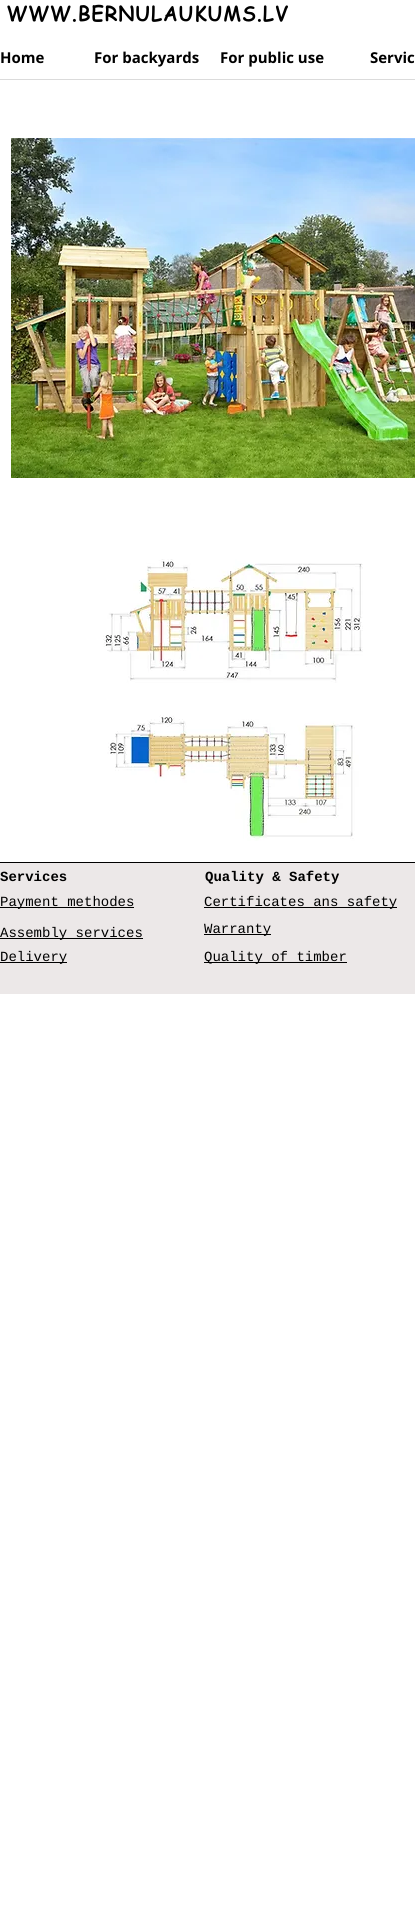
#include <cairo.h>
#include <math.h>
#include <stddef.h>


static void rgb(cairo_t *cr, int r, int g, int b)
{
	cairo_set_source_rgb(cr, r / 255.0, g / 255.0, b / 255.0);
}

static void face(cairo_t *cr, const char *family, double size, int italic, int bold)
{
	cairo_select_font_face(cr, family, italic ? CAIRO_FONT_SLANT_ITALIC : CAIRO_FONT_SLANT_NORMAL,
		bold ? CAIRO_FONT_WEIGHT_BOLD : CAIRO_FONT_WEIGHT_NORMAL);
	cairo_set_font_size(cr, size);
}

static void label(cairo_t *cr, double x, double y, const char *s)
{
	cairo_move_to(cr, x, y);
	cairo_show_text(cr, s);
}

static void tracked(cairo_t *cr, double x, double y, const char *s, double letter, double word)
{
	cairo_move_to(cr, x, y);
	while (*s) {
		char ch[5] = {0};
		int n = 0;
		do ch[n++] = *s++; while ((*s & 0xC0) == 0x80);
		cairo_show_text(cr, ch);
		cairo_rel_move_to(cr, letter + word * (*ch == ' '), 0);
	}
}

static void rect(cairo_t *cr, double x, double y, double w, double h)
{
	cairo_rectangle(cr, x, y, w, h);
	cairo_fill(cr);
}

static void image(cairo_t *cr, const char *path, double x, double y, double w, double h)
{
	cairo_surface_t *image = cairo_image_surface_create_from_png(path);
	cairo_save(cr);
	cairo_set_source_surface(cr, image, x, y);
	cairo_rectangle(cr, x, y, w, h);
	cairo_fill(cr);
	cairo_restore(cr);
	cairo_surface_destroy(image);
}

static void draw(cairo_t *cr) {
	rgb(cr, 255, 255, 255);
	cairo_paint(cr);
	face(cr, "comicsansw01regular", 20, 0, 1);
	rgb(cr, 0, 0, 0);
	tracked(cr, 6, 21, "WWW.BERNULAUKUMS.LV", 1, 0);
	face(cr, "Open Sans", 15, 0, 1);
	label(cr, 0, 63, "Home");
	label(cr, 94, 63, "For backyards");
	label(cr, 220, 63, "For public use");
	label(cr, 370, 63, "Servic");
	rgb(cr, 219, 219, 219);
	rect(cr, 0, 79, 415, 1);
	image(cr, "image0.png", 11, 138, 404, 340);
	image(cr, "image1.png", 103, 559, 260, 282);
	rgb(cr, 0, 0, 0);
	rect(cr, 0, 862, 415, 1);
	rgb(cr, 236, 232, 232);
	rect(cr, 0, 863, 415, 131);
	face(cr, "Liberation Mono", 14, 0, 1);
	rgb(cr, 0, 0, 0);
	label(cr, 0, 881, "Services");
	label(cr, 205, 881, "Quality & Safety");
	rect(cr, 0, 907, 134, 1);
	face(cr, "Liberation Mono", 14, 0, 0);
	label(cr, 0, 906, "Payment methodes");
	rect(cr, 204, 907, 193, 1);
	label(cr, 204, 906, "Certificates ans safety");
	rect(cr, 0, 938, 143, 1);
	label(cr, 0, 937, "Assembly services");
	rect(cr, 204, 934, 67, 1);
	label(cr, 204, 933, "Warranty");
	rect(cr, 0, 962, 67, 1);
	label(cr, 0, 961, "Delivery");
	rect(cr, 204, 962, 143, 1);
	label(cr, 204, 961, "Quality of timber");
}

int main(void) {
	cairo_surface_t *surface = cairo_image_surface_create(CAIRO_FORMAT_RGB24, 415, 1907);
	cairo_t *cr = cairo_create(surface);
	cairo_font_options_t *options = cairo_font_options_create();
	cairo_font_options_set_hint_metrics(options, CAIRO_HINT_METRICS_OFF);
	cairo_font_options_set_hint_style(options, CAIRO_HINT_STYLE_NONE);
	cairo_set_font_options(cr, options);
	cairo_set_miter_limit(cr, 4);
	draw(cr);
	cairo_surface_write_to_png(surface, "render.png");
	cairo_font_options_destroy(options);
	cairo_destroy(cr);
	cairo_surface_destroy(surface);
	return 0;
}
